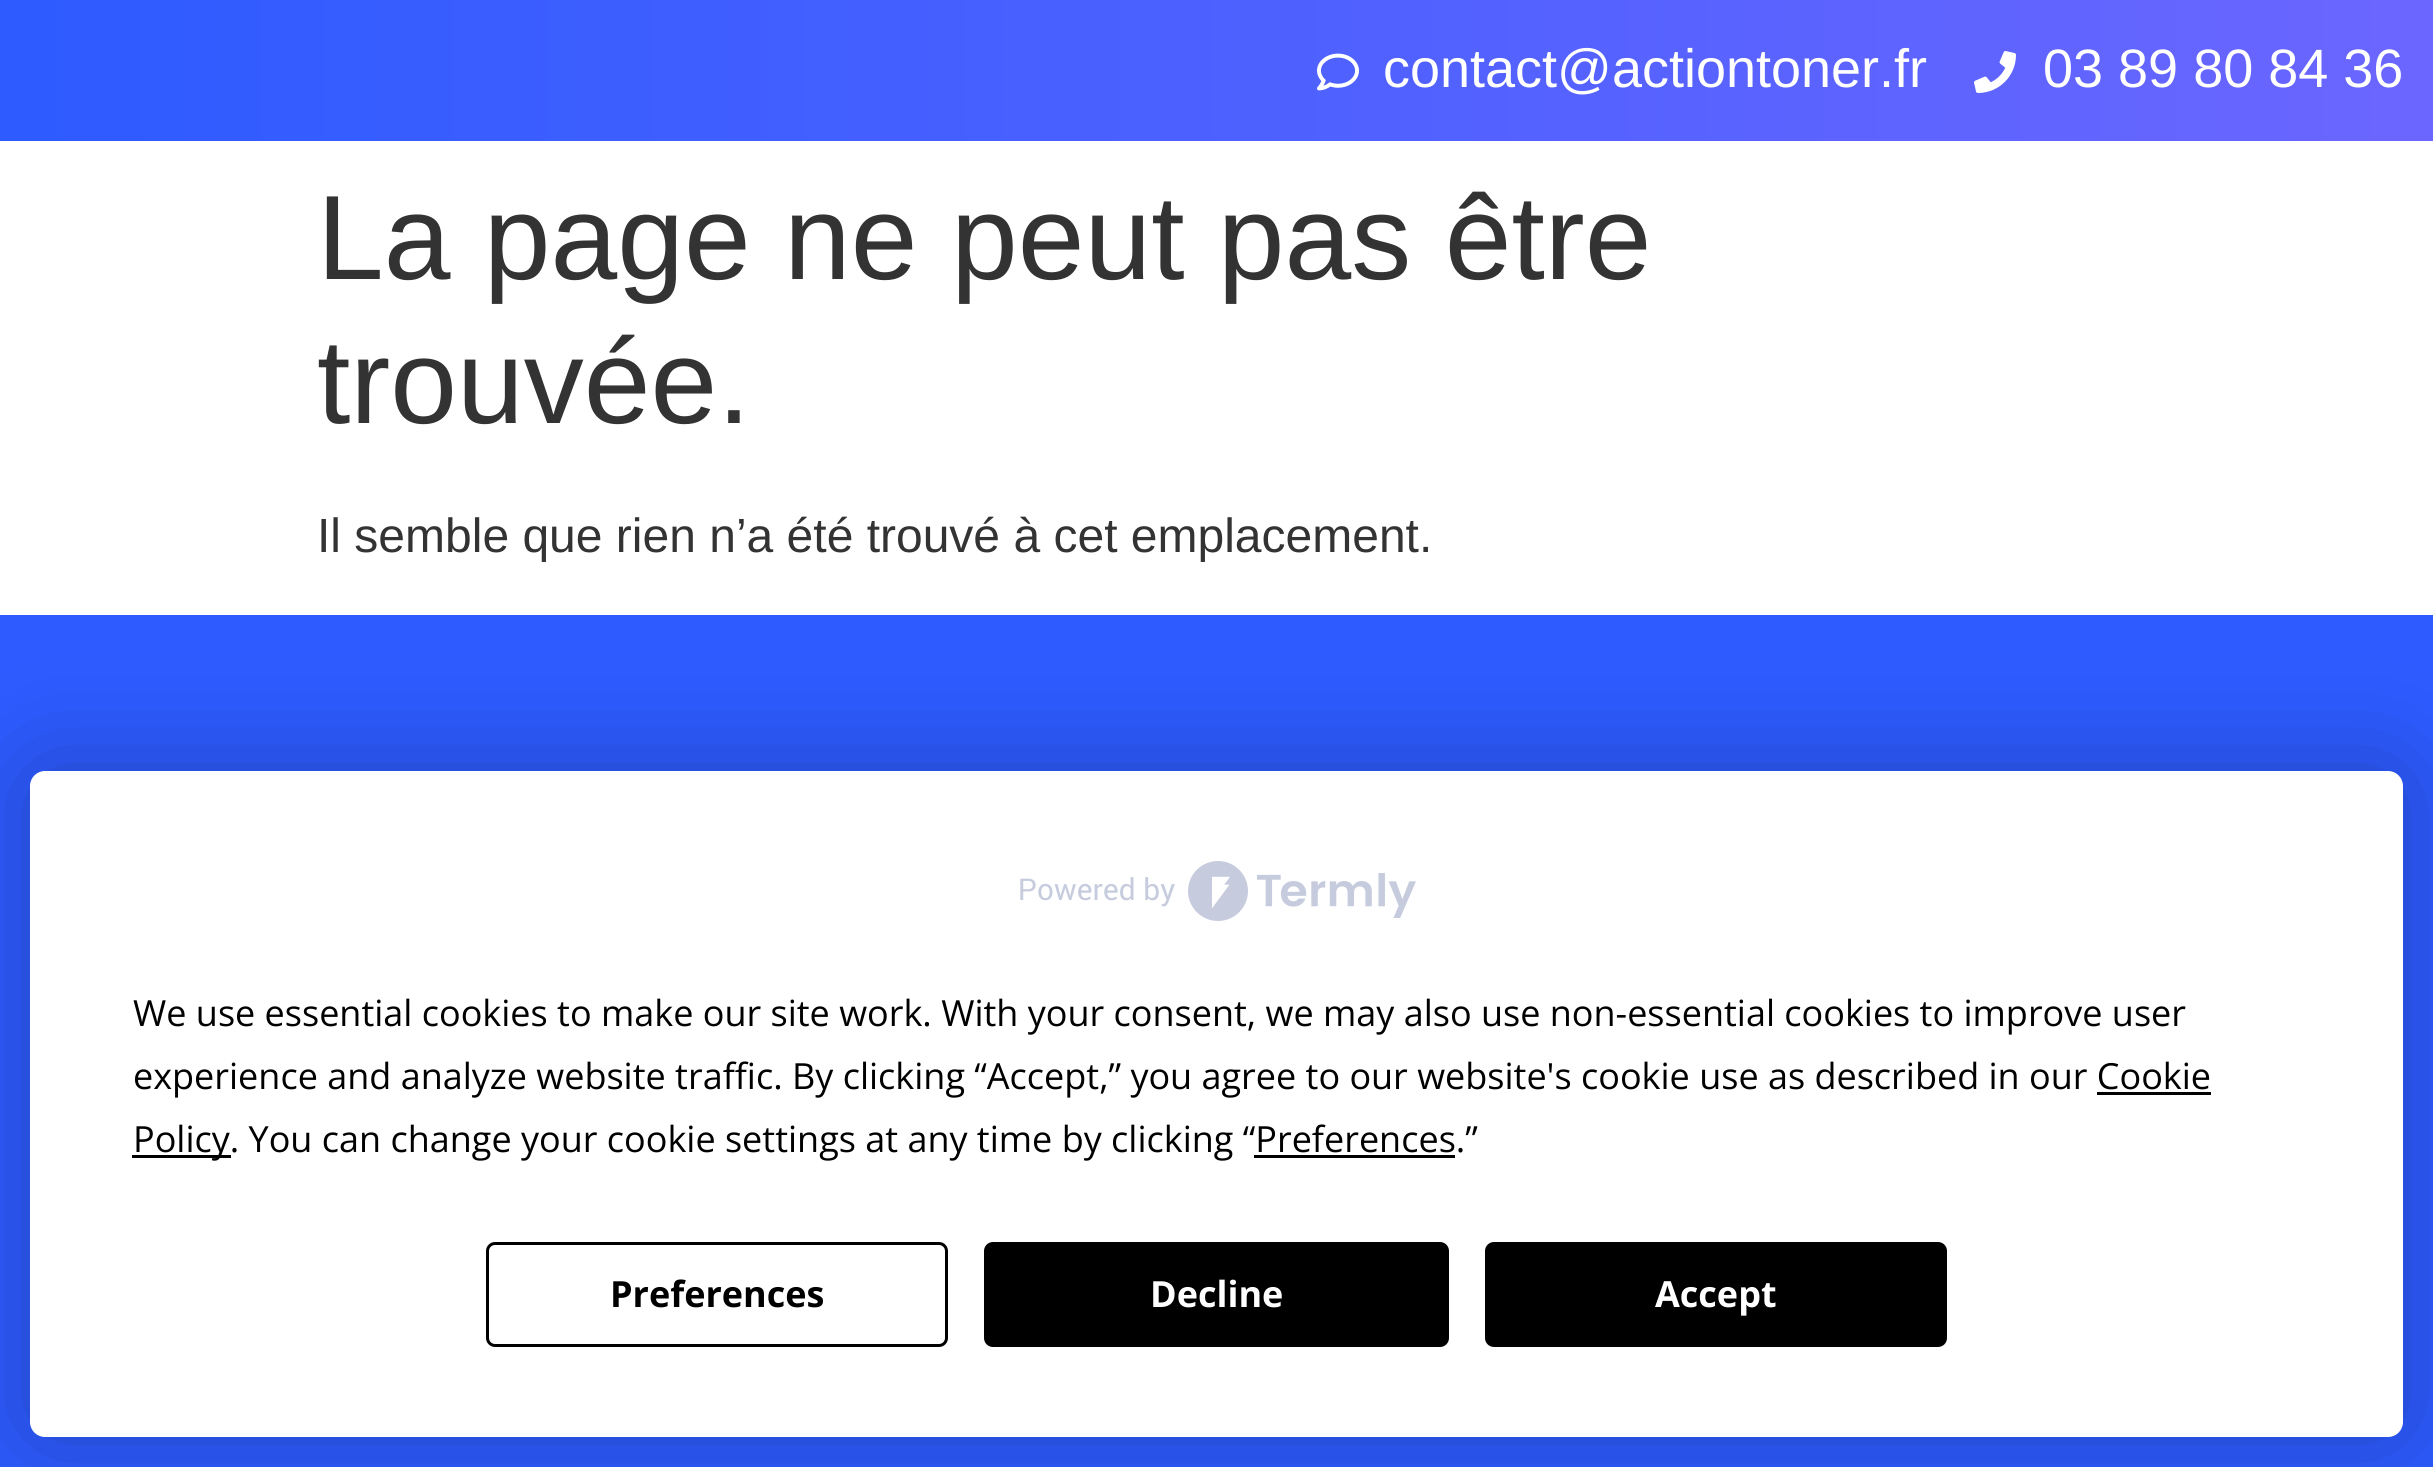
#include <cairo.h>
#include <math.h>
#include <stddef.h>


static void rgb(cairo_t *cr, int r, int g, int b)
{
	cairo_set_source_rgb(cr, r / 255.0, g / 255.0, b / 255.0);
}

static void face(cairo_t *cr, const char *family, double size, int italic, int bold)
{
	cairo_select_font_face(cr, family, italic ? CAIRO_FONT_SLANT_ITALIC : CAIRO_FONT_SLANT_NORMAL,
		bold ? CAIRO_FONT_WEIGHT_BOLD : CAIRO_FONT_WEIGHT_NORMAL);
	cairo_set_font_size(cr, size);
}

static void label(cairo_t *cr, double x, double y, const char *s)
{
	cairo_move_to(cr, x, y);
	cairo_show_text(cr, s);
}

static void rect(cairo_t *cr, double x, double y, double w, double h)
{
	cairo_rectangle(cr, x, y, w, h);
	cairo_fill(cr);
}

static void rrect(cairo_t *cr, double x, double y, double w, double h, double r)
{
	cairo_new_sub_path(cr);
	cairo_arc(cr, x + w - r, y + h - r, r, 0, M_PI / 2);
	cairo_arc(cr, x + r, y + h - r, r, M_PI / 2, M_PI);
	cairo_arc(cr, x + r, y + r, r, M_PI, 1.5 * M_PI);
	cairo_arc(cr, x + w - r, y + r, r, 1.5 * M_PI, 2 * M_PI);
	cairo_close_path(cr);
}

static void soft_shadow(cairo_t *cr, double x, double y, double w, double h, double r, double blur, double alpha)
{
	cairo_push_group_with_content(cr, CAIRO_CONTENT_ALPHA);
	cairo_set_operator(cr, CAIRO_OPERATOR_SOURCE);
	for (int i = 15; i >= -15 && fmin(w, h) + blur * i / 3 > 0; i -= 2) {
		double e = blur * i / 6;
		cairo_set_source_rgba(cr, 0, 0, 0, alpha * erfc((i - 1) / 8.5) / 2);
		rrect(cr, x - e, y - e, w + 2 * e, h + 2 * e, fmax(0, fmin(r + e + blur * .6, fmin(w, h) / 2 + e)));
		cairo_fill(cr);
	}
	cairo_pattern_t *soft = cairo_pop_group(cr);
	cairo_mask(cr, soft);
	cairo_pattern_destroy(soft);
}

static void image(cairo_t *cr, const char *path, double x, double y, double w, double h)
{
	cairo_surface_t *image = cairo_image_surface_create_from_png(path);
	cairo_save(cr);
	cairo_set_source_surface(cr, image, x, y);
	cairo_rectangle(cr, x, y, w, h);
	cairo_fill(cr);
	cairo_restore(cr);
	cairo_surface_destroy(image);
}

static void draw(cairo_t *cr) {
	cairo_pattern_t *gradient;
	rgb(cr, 255, 255, 255);
	cairo_paint(cr);
	gradient = cairo_pattern_create_linear(0, 71, 2433, 70);
	cairo_pattern_add_color_stop_rgba(gradient, 0, 0.176, 0.357, 1, 1);
	cairo_pattern_add_color_stop_rgba(gradient, 1, 0.42, 0.4, 1, 1);
	cairo_set_source(cr, gradient);
	cairo_pattern_destroy(gradient);
	rect(cr, 0, 0, 2433, 141);
	image(cr, "image0.png", 1317, 53, 42, 38);
	face(cr, "Liberation Sans", 54, 0, 0);
	rgb(cr, 255, 255, 255);
	label(cr, 1383, 87, "contact@actiontoner.fr");
	image(cr, "image1.png", 1974, 51, 42, 42);
	label(cr, 2043, 87, "03 89 80 84 36");
	face(cr, "Liberation Sans", 120, 0, 0);
	rgb(cr, 51, 51, 51);
	label(cr, 317, 279, "La page ne peut pas être");
	label(cr, 317, 423, "trouvée.");
	face(cr, "Liberation Sans", 48, 0, 0);
	label(cr, 317, 552, "Il semble que rien n’a été trouvé à cet emplacement.");
	rgb(cr, 45, 91, 255);
	rect(cr, 0, 615, 2433, 852);
	rgb(cr, 0, 0, 0);
	soft_shadow(cr, 30, 771, 2373, 666, 15, 52.5, 0.25);
	rgb(cr, 255, 255, 255);
	rrect(cr, 30, 771, 2373, 666, 15);
	cairo_fill(cr);
	image(cr, "image2.png", 1020, 861, 396, 60);
	face(cr, "Open Sans", 36, 0, 0);
	rgb(cr, 0, 0, 0);
	label(cr, 133, 1026, "We use essential cookies to make our site work. With your consent, we may also use non-essential cookies to improve user");
	label(cr, 133, 1089, "experience and analyze website traffic. By clicking “Accept,” you agree to our website's cookie use as described in our Cookie");
	rect(cr, 132, 1155, 99, 3);
	label(cr, 133, 1152, "Policy. You can change your cookie settings at any time by clicking “Preferences.”");
	rect(cr, 2097, 1092, 114, 3);
	rect(cr, 1254, 1155, 201, 3);
	rrect(cr, 487.5, 1243.5, 459, 102, 7.5);
	cairo_set_line_width(cr, 3);
	cairo_stroke(cr);
	face(cr, "Open Sans", 36, 0, 1);
	label(cr, 610, 1307, "Preferences");
	rrect(cr, 985.5, 1243.5, 462, 102, 7.5);
	cairo_fill_preserve(cr);
	cairo_stroke(cr);
	rgb(cr, 255, 255, 255);
	label(cr, 1150, 1307, "Decline");
	rgb(cr, 0, 0, 0);
	rrect(cr, 1486.5, 1243.5, 459, 102, 7.5);
	cairo_fill_preserve(cr);
	cairo_stroke(cr);
	rgb(cr, 255, 255, 255);
	label(cr, 1655, 1307, "Accept");
}

int main(void) {
	cairo_surface_t *surface = cairo_image_surface_create(CAIRO_FORMAT_RGB24, 2433, 1467);
	cairo_t *cr = cairo_create(surface);
	cairo_font_options_t *options = cairo_font_options_create();
	cairo_font_options_set_hint_metrics(options, CAIRO_HINT_METRICS_OFF);
	cairo_font_options_set_hint_style(options, CAIRO_HINT_STYLE_NONE);
	cairo_set_font_options(cr, options);
	cairo_set_miter_limit(cr, 4);
	draw(cr);
	cairo_surface_write_to_png(surface, "render.png");
	cairo_font_options_destroy(options);
	cairo_destroy(cr);
	cairo_surface_destroy(surface);
	return 0;
}
